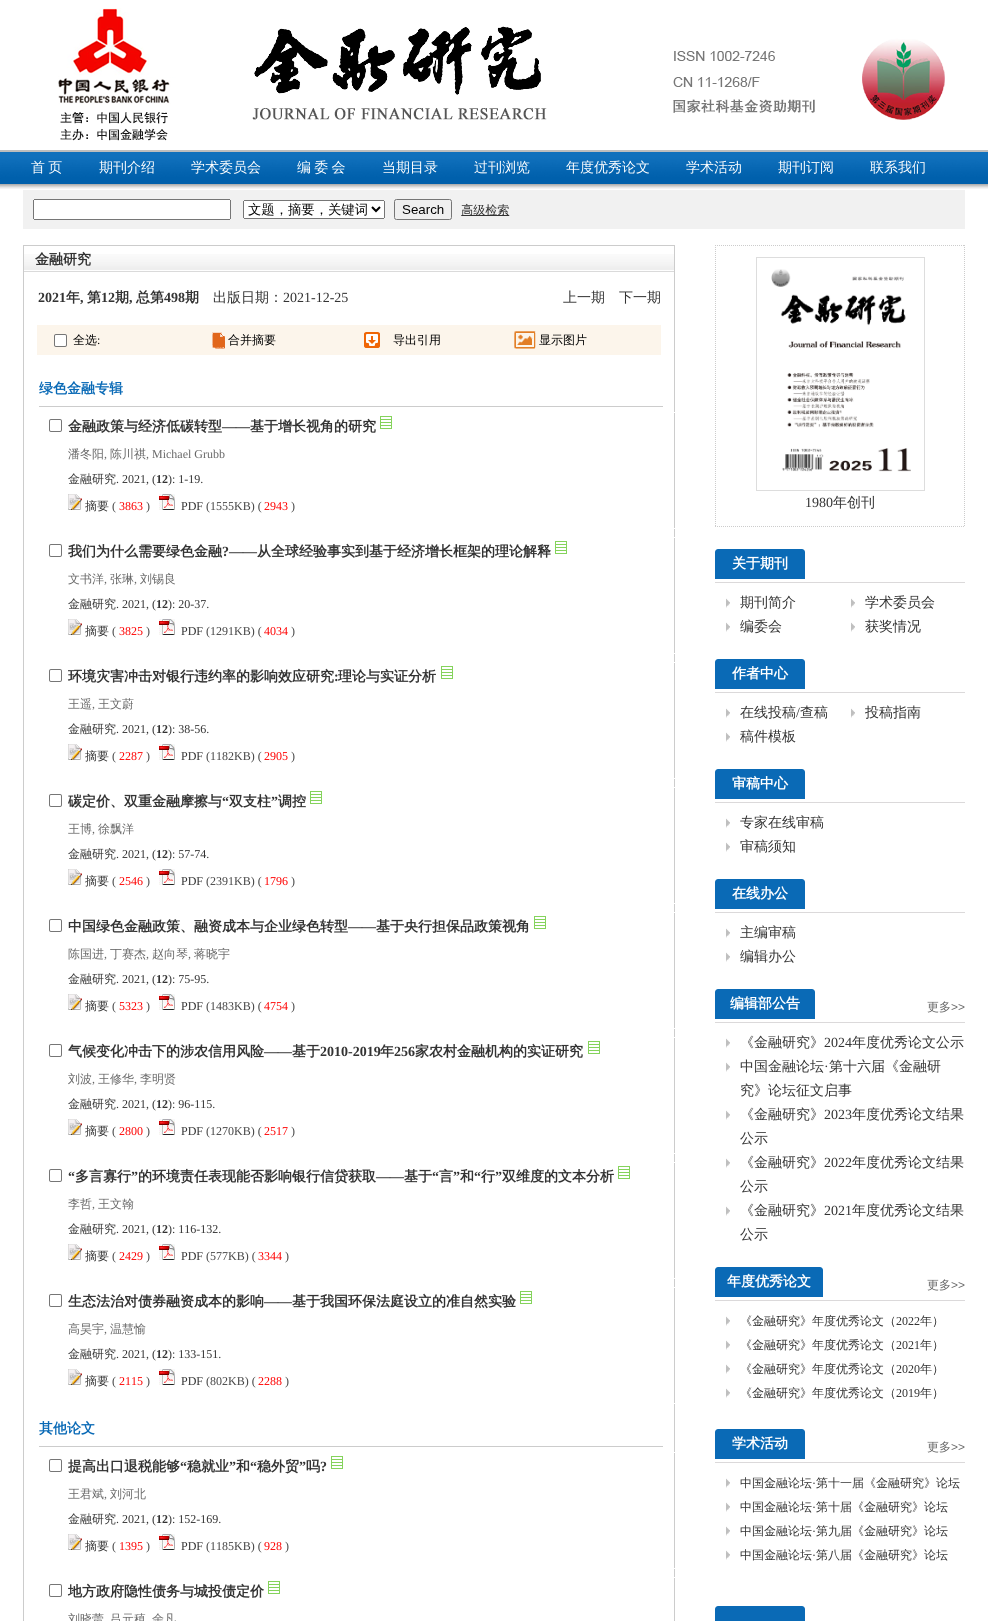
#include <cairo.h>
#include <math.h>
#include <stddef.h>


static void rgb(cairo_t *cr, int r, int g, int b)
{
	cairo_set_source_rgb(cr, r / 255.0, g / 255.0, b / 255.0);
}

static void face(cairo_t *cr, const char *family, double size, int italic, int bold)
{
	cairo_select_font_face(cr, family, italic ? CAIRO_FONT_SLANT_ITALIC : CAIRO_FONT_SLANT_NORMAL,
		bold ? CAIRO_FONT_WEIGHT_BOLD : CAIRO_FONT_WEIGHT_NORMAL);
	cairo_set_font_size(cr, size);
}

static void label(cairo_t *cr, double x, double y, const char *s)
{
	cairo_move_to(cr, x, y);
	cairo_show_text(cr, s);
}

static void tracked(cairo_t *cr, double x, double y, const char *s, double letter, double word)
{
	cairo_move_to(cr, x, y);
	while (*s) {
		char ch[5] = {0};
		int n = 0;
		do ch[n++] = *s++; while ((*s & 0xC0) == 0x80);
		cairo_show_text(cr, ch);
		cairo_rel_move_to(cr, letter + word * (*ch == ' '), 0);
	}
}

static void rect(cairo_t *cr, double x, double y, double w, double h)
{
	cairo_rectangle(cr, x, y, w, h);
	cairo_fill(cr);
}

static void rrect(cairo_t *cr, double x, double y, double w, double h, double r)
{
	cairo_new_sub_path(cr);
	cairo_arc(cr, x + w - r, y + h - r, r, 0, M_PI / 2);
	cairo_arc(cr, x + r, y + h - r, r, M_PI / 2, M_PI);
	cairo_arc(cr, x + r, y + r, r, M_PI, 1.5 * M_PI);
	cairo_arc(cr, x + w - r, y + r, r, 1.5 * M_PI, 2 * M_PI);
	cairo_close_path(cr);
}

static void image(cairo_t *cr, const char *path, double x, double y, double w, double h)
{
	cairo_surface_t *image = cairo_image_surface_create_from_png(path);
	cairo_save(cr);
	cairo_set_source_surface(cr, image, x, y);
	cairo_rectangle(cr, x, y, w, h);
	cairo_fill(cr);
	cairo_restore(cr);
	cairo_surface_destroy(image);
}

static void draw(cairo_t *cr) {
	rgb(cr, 255, 255, 255);
	cairo_paint(cr);
	image(cr, "image0.png", 58, 8, 887, 133);
	image(cr, "image1.png", 0, 150, 988, 39);
	face(cr, "WenQuanYi Zen Hei Medium", 14, 0, 0);
	rgb(cr, 255, 255, 255);
	tracked(cr, 31, 172, "首 页", 0, -1);
	label(cr, 99, 172, "期刊介绍");
	label(cr, 191, 172, "学术委员会");
	tracked(cr, 297, 172, "编 委 会", 0, -1);
	label(cr, 382, 172, "当期目录");
	label(cr, 474, 172, "过刊浏览");
	label(cr, 566, 172, "年度优秀论文");
	label(cr, 686, 172, "学术活动");
	label(cr, 778, 172, "期刊订阅");
	label(cr, 870, 172, "联系我们");
	rgb(cr, 241, 241, 241);
	rect(cr, 23, 190, 942, 39);
	image(cr, "image2.png", 33, 199, 477, 21);
	cairo_rectangle(cr, 23.5, 245.5, 651, 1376);
	rgb(cr, 204, 204, 204);
	cairo_set_line_width(cr, 1);
	cairo_stroke(cr);
	image(cr, "image3.png", 24, 254, 650, 18);
	face(cr, "WenQuanYi Zen Hei", 14, 0, 1);
	rgb(cr, 51, 51, 51);
	label(cr, 35, 264, "金融研究");
	face(cr, "Liberation Serif", 14, 0, 1);
	label(cr, 38, 302, "2021");
	face(cr, "WenQuanYi Zen Hei", 14, 0, 1);
	label(cr, 66, 302, "年");
	face(cr, "Liberation Serif", 14, 0, 1);
	label(cr, 80, 302, ",");
	face(cr, "WenQuanYi Zen Hei", 14, 0, 1);
	label(cr, 87, 302, "第");
	face(cr, "Liberation Serif", 14, 0, 1);
	label(cr, 101, 302, "12");
	face(cr, "WenQuanYi Zen Hei", 14, 0, 1);
	label(cr, 115, 302, "期");
	face(cr, "Liberation Serif", 14, 0, 1);
	label(cr, 129, 302, ",");
	face(cr, "WenQuanYi Zen Hei", 14, 0, 1);
	label(cr, 136, 302, "总第");
	face(cr, "Liberation Serif", 14, 0, 1);
	label(cr, 164, 302, "498");
	face(cr, "WenQuanYi Zen Hei", 14, 0, 1);
	label(cr, 185, 302, "期");
	face(cr, "WenQuanYi Zen Hei Medium", 14, 0, 0);
	label(cr, 213, 302, "出版日期：");
	face(cr, "Liberation Serif", 14, 0, 0);
	label(cr, 283, 302, "2021-12-25");
	face(cr, "WenQuanYi Zen Hei Medium", 14, 0, 0);
	label(cr, 563, 302, "上一期");
	label(cr, 619, 302, "下一期");
	rgb(cr, 252, 245, 235);
	rect(cr, 37, 325, 624, 30);
	rgb(cr, 255, 255, 255);
	rrect(cr, 54.5, 334.5, 12, 12, 1.5);
	cairo_fill_preserve(cr);
	rgb(cr, 118, 118, 118);
	cairo_stroke(cr);
	face(cr, "WenQuanYi Zen Hei Medium", 12, 0, 0);
	rgb(cr, 0, 0, 0);
	label(cr, 73, 344, "全选");
	face(cr, "Liberation Serif", 12, 0, 0);
	label(cr, 97, 344, ":");
	image(cr, "image4.png", 212, 332, 13, 17);
	face(cr, "WenQuanYi Zen Hei Medium", 12, 0, 0);
	label(cr, 228, 344, "合并摘要");
	image(cr, "image5.png", 364, 332, 16, 16);
	label(cr, 393, 344, "导出引用");
	image(cr, "image6.png", 514, 331, 22, 18);
	label(cr, 539, 344, "显示图片");
	rgb(cr, 204, 204, 204);
	rect(cr, 39, 406, 624, 1);
	face(cr, "WenQuanYi Zen Hei", 14, 0, 1);
	rgb(cr, 10, 106, 182);
	label(cr, 39, 393, "绿色金融专辑");
	cairo_rectangle(cr, 31.5, 412.5, 648, 116);
	rgb(cr, 255, 255, 255);
	cairo_stroke(cr);
	rrect(cr, 49.5, 419.5, 12, 12, 1.5);
	rgb(cr, 118, 118, 118);
	cairo_stroke(cr);
	rgb(cr, 51, 51, 51);
	label(cr, 68, 431, "金融政策与经济低碳转型");
	face(cr, "Liberation Serif", 14, 0, 1);
	label(cr, 222, 431, "——");
	face(cr, "WenQuanYi Zen Hei", 14, 0, 1);
	label(cr, 250, 431, "基于增长视角的研究");
	image(cr, "image7.png", 380, 416, 12, 13);
	face(cr, "WenQuanYi Zen Hei Medium", 12, 0, 0);
	rgb(cr, 102, 102, 102);
	label(cr, 68, 458, "潘冬阳");
	face(cr, "Liberation Serif", 12, 0, 0);
	label(cr, 104, 458, ",");
	face(cr, "WenQuanYi Zen Hei Medium", 12, 0, 0);
	label(cr, 110, 458, "陈川祺");
	face(cr, "Liberation Serif", 12, 0, 0);
	label(cr, 146, 458, ", Michael Grubb");
	face(cr, "WenQuanYi Zen Hei Medium", 12, 0, 0);
	rgb(cr, 51, 51, 51);
	label(cr, 68, 483, "金融研究");
	face(cr, "Liberation Serif", 12, 0, 0);
	label(cr, 116, 483, ". 2021, (");
	face(cr, "Liberation Serif", 12, 0, 1);
	label(cr, 156, 483, "12");
	face(cr, "Liberation Serif", 12, 0, 0);
	label(cr, 168, 483, "): 1-19.");
	image(cr, "image8.png", 68, 494, 14, 16);
	face(cr, "WenQuanYi Zen Hei Medium", 12, 0, 0);
	label(cr, 85, 510, "摘要");
	face(cr, "Liberation Serif", 12, 0, 0);
	rgb(cr, 68, 68, 68);
	label(cr, 112, 510, "(");
	rgb(cr, 255, 0, 0);
	label(cr, 119, 510, "3863");
	rgb(cr, 68, 68, 68);
	label(cr, 146, 510, ")");
	image(cr, "image9.png", 159, 494, 16, 16);
	rgb(cr, 51, 51, 51);
	label(cr, 181, 510, "PDF");
	rgb(cr, 68, 68, 68);
	label(cr, 206, 510, "(1555KB) (");
	rgb(cr, 255, 0, 0);
	label(cr, 264, 510, "2943");
	rgb(cr, 68, 68, 68);
	label(cr, 291, 510, ")");
	cairo_rectangle(cr, 31.5, 537.5, 648, 116);
	rgb(cr, 255, 255, 255);
	cairo_stroke(cr);
	rrect(cr, 49.5, 544.5, 12, 12, 1.5);
	rgb(cr, 118, 118, 118);
	cairo_stroke(cr);
	face(cr, "WenQuanYi Zen Hei", 14, 0, 1);
	rgb(cr, 51, 51, 51);
	label(cr, 68, 556, "我们为什么需要绿色金融");
	face(cr, "Liberation Serif", 14, 0, 1);
	label(cr, 222, 556, "?——");
	face(cr, "WenQuanYi Zen Hei", 14, 0, 1);
	label(cr, 257, 556, "从全球经验事实到基于经济增长框架的理论解释");
	image(cr, "image7.png", 555, 541, 12, 13);
	face(cr, "WenQuanYi Zen Hei Medium", 12, 0, 0);
	rgb(cr, 102, 102, 102);
	label(cr, 68, 583, "文书洋");
	face(cr, "Liberation Serif", 12, 0, 0);
	label(cr, 104, 583, ",");
	face(cr, "WenQuanYi Zen Hei Medium", 12, 0, 0);
	label(cr, 110, 583, "张琳");
	face(cr, "Liberation Serif", 12, 0, 0);
	label(cr, 134, 583, ",");
	face(cr, "WenQuanYi Zen Hei Medium", 12, 0, 0);
	label(cr, 140, 583, "刘锡良");
	rgb(cr, 51, 51, 51);
	label(cr, 68, 608, "金融研究");
	face(cr, "Liberation Serif", 12, 0, 0);
	label(cr, 116, 608, ". 2021, (");
	face(cr, "Liberation Serif", 12, 0, 1);
	label(cr, 156, 608, "12");
	face(cr, "Liberation Serif", 12, 0, 0);
	label(cr, 168, 608, "): 20-37.");
	image(cr, "image8.png", 68, 619, 14, 16);
	face(cr, "WenQuanYi Zen Hei Medium", 12, 0, 0);
	label(cr, 85, 635, "摘要");
	face(cr, "Liberation Serif", 12, 0, 0);
	rgb(cr, 68, 68, 68);
	label(cr, 112, 635, "(");
	rgb(cr, 255, 0, 0);
	label(cr, 119, 635, "3825");
	rgb(cr, 68, 68, 68);
	label(cr, 146, 635, ")");
	image(cr, "image9.png", 159, 619, 16, 16);
	rgb(cr, 51, 51, 51);
	label(cr, 181, 635, "PDF");
	rgb(cr, 68, 68, 68);
	label(cr, 206, 635, "(1291KB) (");
	rgb(cr, 255, 0, 0);
	label(cr, 264, 635, "4034");
	rgb(cr, 68, 68, 68);
	label(cr, 291, 635, ")");
	cairo_rectangle(cr, 31.5, 662.5, 648, 116);
	rgb(cr, 255, 255, 255);
	cairo_stroke(cr);
	rrect(cr, 49.5, 669.5, 12, 12, 1.5);
	rgb(cr, 118, 118, 118);
	cairo_stroke(cr);
	face(cr, "WenQuanYi Zen Hei", 14, 0, 1);
	rgb(cr, 51, 51, 51);
	label(cr, 68, 681, "环境灾害冲击对银行违约率的影响效应研究");
	face(cr, "Liberation Serif", 14, 0, 1);
	label(cr, 334, 681, ":");
	face(cr, "WenQuanYi Zen Hei", 14, 0, 1);
	label(cr, 338, 681, "理论与实证分析");
	image(cr, "image7.png", 441, 666, 12, 13);
	face(cr, "WenQuanYi Zen Hei Medium", 12, 0, 0);
	rgb(cr, 102, 102, 102);
	label(cr, 68, 708, "王遥");
	face(cr, "Liberation Serif", 12, 0, 0);
	label(cr, 92, 708, ",");
	face(cr, "WenQuanYi Zen Hei Medium", 12, 0, 0);
	label(cr, 98, 708, "王文蔚");
	rgb(cr, 51, 51, 51);
	label(cr, 68, 733, "金融研究");
	face(cr, "Liberation Serif", 12, 0, 0);
	label(cr, 116, 733, ". 2021, (");
	face(cr, "Liberation Serif", 12, 0, 1);
	label(cr, 156, 733, "12");
	face(cr, "Liberation Serif", 12, 0, 0);
	label(cr, 168, 733, "): 38-56.");
	image(cr, "image8.png", 68, 744, 14, 16);
	face(cr, "WenQuanYi Zen Hei Medium", 12, 0, 0);
	label(cr, 85, 760, "摘要");
	face(cr, "Liberation Serif", 12, 0, 0);
	rgb(cr, 68, 68, 68);
	label(cr, 112, 760, "(");
	rgb(cr, 255, 0, 0);
	label(cr, 119, 760, "2287");
	rgb(cr, 68, 68, 68);
	label(cr, 146, 760, ")");
	image(cr, "image9.png", 159, 744, 16, 16);
	rgb(cr, 51, 51, 51);
	label(cr, 181, 760, "PDF");
	rgb(cr, 68, 68, 68);
	label(cr, 206, 760, "(1182KB) (");
	rgb(cr, 255, 0, 0);
	label(cr, 264, 760, "2905");
	rgb(cr, 68, 68, 68);
	label(cr, 291, 760, ")");
	cairo_rectangle(cr, 31.5, 787.5, 648, 116);
	rgb(cr, 255, 255, 255);
	cairo_stroke(cr);
	rrect(cr, 49.5, 794.5, 12, 12, 1.5);
	rgb(cr, 118, 118, 118);
	cairo_stroke(cr);
	face(cr, "WenQuanYi Zen Hei", 14, 0, 1);
	rgb(cr, 51, 51, 51);
	label(cr, 68, 806, "碳定价、双重金融摩擦与");
	face(cr, "Liberation Serif", 14, 0, 1);
	label(cr, 222, 806, "“");
	face(cr, "WenQuanYi Zen Hei", 14, 0, 1);
	label(cr, 229, 806, "双支柱");
	face(cr, "Liberation Serif", 14, 0, 1);
	label(cr, 271, 806, "”");
	face(cr, "WenQuanYi Zen Hei", 14, 0, 1);
	label(cr, 278, 806, "调控");
	image(cr, "image7.png", 310, 791, 12, 13);
	face(cr, "WenQuanYi Zen Hei Medium", 12, 0, 0);
	rgb(cr, 102, 102, 102);
	label(cr, 68, 833, "王博");
	face(cr, "Liberation Serif", 12, 0, 0);
	label(cr, 92, 833, ",");
	face(cr, "WenQuanYi Zen Hei Medium", 12, 0, 0);
	label(cr, 98, 833, "徐飘洋");
	rgb(cr, 51, 51, 51);
	label(cr, 68, 858, "金融研究");
	face(cr, "Liberation Serif", 12, 0, 0);
	label(cr, 116, 858, ". 2021, (");
	face(cr, "Liberation Serif", 12, 0, 1);
	label(cr, 156, 858, "12");
	face(cr, "Liberation Serif", 12, 0, 0);
	label(cr, 168, 858, "): 57-74.");
	image(cr, "image8.png", 68, 869, 14, 16);
	face(cr, "WenQuanYi Zen Hei Medium", 12, 0, 0);
	label(cr, 85, 885, "摘要");
	face(cr, "Liberation Serif", 12, 0, 0);
	rgb(cr, 68, 68, 68);
	label(cr, 112, 885, "(");
	rgb(cr, 255, 0, 0);
	label(cr, 119, 885, "2546");
	rgb(cr, 68, 68, 68);
	label(cr, 146, 885, ")");
	image(cr, "image9.png", 159, 869, 16, 16);
	rgb(cr, 51, 51, 51);
	label(cr, 181, 885, "PDF");
	rgb(cr, 68, 68, 68);
	label(cr, 206, 885, "(2391KB) (");
	rgb(cr, 255, 0, 0);
	label(cr, 264, 885, "1796");
	rgb(cr, 68, 68, 68);
	label(cr, 291, 885, ")");
	cairo_rectangle(cr, 31.5, 912.5, 648, 116);
	rgb(cr, 255, 255, 255);
	cairo_stroke(cr);
	rrect(cr, 49.5, 919.5, 12, 12, 1.5);
	rgb(cr, 118, 118, 118);
	cairo_stroke(cr);
	face(cr, "WenQuanYi Zen Hei", 14, 0, 1);
	rgb(cr, 51, 51, 51);
	label(cr, 68, 931, "中国绿色金融政策、融资成本与企业绿色转型");
	face(cr, "Liberation Serif", 14, 0, 1);
	label(cr, 348, 931, "——");
	face(cr, "WenQuanYi Zen Hei", 14, 0, 1);
	label(cr, 376, 931, "基于央行担保品政策视角");
	image(cr, "image7.png", 534, 916, 12, 13);
	face(cr, "WenQuanYi Zen Hei Medium", 12, 0, 0);
	rgb(cr, 102, 102, 102);
	label(cr, 68, 958, "陈国进");
	face(cr, "Liberation Serif", 12, 0, 0);
	label(cr, 104, 958, ",");
	face(cr, "WenQuanYi Zen Hei Medium", 12, 0, 0);
	label(cr, 110, 958, "丁赛杰");
	face(cr, "Liberation Serif", 12, 0, 0);
	label(cr, 146, 958, ",");
	face(cr, "WenQuanYi Zen Hei Medium", 12, 0, 0);
	label(cr, 152, 958, "赵向琴");
	face(cr, "Liberation Serif", 12, 0, 0);
	label(cr, 188, 958, ",");
	face(cr, "WenQuanYi Zen Hei Medium", 12, 0, 0);
	label(cr, 194, 958, "蒋晓宇");
	rgb(cr, 51, 51, 51);
	label(cr, 68, 983, "金融研究");
	face(cr, "Liberation Serif", 12, 0, 0);
	label(cr, 116, 983, ". 2021, (");
	face(cr, "Liberation Serif", 12, 0, 1);
	label(cr, 156, 983, "12");
	face(cr, "Liberation Serif", 12, 0, 0);
	label(cr, 168, 983, "): 75-95.");
	image(cr, "image8.png", 68, 994, 14, 16);
	face(cr, "WenQuanYi Zen Hei Medium", 12, 0, 0);
	label(cr, 85, 1010, "摘要");
	face(cr, "Liberation Serif", 12, 0, 0);
	rgb(cr, 68, 68, 68);
	label(cr, 112, 1010, "(");
	rgb(cr, 255, 0, 0);
	label(cr, 119, 1010, "5323");
	rgb(cr, 68, 68, 68);
	label(cr, 146, 1010, ")");
	image(cr, "image9.png", 159, 994, 16, 16);
	rgb(cr, 51, 51, 51);
	label(cr, 181, 1010, "PDF");
	rgb(cr, 68, 68, 68);
	label(cr, 206, 1010, "(1483KB) (");
	rgb(cr, 255, 0, 0);
	label(cr, 264, 1010, "4754");
	rgb(cr, 68, 68, 68);
	label(cr, 291, 1010, ")");
	cairo_rectangle(cr, 31.5, 1037.5, 648, 116);
	rgb(cr, 255, 255, 255);
	cairo_stroke(cr);
	rrect(cr, 49.5, 1044.5, 12, 12, 1.5);
	rgb(cr, 118, 118, 118);
	cairo_stroke(cr);
	face(cr, "WenQuanYi Zen Hei", 14, 0, 1);
	rgb(cr, 51, 51, 51);
	label(cr, 68, 1056, "气候变化冲击下的涉农信用风险");
	face(cr, "Liberation Serif", 14, 0, 1);
	label(cr, 264, 1056, "——");
	face(cr, "WenQuanYi Zen Hei", 14, 0, 1);
	label(cr, 292, 1056, "基于");
	face(cr, "Liberation Serif", 14, 0, 1);
	label(cr, 320, 1056, "2010-2019");
	face(cr, "WenQuanYi Zen Hei", 14, 0, 1);
	label(cr, 380, 1056, "年");
	face(cr, "Liberation Serif", 14, 0, 1);
	label(cr, 394, 1056, "256");
	face(cr, "WenQuanYi Zen Hei", 14, 0, 1);
	label(cr, 415, 1056, "家农村金融机构的实证研究");
	image(cr, "image7.png", 588, 1041, 12, 13);
	face(cr, "WenQuanYi Zen Hei Medium", 12, 0, 0);
	rgb(cr, 102, 102, 102);
	label(cr, 68, 1083, "刘波");
	face(cr, "Liberation Serif", 12, 0, 0);
	label(cr, 92, 1083, ",");
	face(cr, "WenQuanYi Zen Hei Medium", 12, 0, 0);
	label(cr, 98, 1083, "王修华");
	face(cr, "Liberation Serif", 12, 0, 0);
	label(cr, 134, 1083, ",");
	face(cr, "WenQuanYi Zen Hei Medium", 12, 0, 0);
	label(cr, 140, 1083, "李明贤");
	rgb(cr, 51, 51, 51);
	label(cr, 68, 1108, "金融研究");
	face(cr, "Liberation Serif", 12, 0, 0);
	label(cr, 116, 1108, ". 2021, (");
	face(cr, "Liberation Serif", 12, 0, 1);
	label(cr, 156, 1108, "12");
	face(cr, "Liberation Serif", 12, 0, 0);
	label(cr, 168, 1108, "): 96-115.");
	image(cr, "image8.png", 68, 1119, 14, 16);
	face(cr, "WenQuanYi Zen Hei Medium", 12, 0, 0);
	label(cr, 85, 1135, "摘要");
	face(cr, "Liberation Serif", 12, 0, 0);
	rgb(cr, 68, 68, 68);
	label(cr, 112, 1135, "(");
	rgb(cr, 255, 0, 0);
	label(cr, 119, 1135, "2800");
	rgb(cr, 68, 68, 68);
	label(cr, 146, 1135, ")");
	image(cr, "image9.png", 159, 1119, 16, 16);
	rgb(cr, 51, 51, 51);
	label(cr, 181, 1135, "PDF");
	rgb(cr, 68, 68, 68);
	label(cr, 206, 1135, "(1270KB) (");
	rgb(cr, 255, 0, 0);
	label(cr, 264, 1135, "2517");
	rgb(cr, 68, 68, 68);
	label(cr, 291, 1135, ")");
	cairo_rectangle(cr, 31.5, 1162.5, 648, 116);
	rgb(cr, 255, 255, 255);
	cairo_stroke(cr);
	rrect(cr, 49.5, 1169.5, 12, 12, 1.5);
	rgb(cr, 118, 118, 118);
	cairo_stroke(cr);
	face(cr, "Liberation Serif", 14, 0, 1);
	rgb(cr, 51, 51, 51);
	label(cr, 68, 1181, "“");
	face(cr, "WenQuanYi Zen Hei", 14, 0, 1);
	label(cr, 75, 1181, "多言寡行");
	face(cr, "Liberation Serif", 14, 0, 1);
	label(cr, 131, 1181, "”");
	face(cr, "WenQuanYi Zen Hei", 14, 0, 1);
	label(cr, 138, 1181, "的环境责任表现能否影响银行信贷获取");
	face(cr, "Liberation Serif", 14, 0, 1);
	label(cr, 376, 1181, "——");
	face(cr, "WenQuanYi Zen Hei", 14, 0, 1);
	label(cr, 404, 1181, "基于");
	face(cr, "Liberation Serif", 14, 0, 1);
	label(cr, 432, 1181, "“");
	face(cr, "WenQuanYi Zen Hei", 14, 0, 1);
	label(cr, 439, 1181, "言");
	face(cr, "Liberation Serif", 14, 0, 1);
	label(cr, 453, 1181, "”");
	face(cr, "WenQuanYi Zen Hei", 14, 0, 1);
	label(cr, 460, 1181, "和");
	face(cr, "Liberation Serif", 14, 0, 1);
	label(cr, 474, 1181, "“");
	face(cr, "WenQuanYi Zen Hei", 14, 0, 1);
	label(cr, 481, 1181, "行");
	face(cr, "Liberation Serif", 14, 0, 1);
	label(cr, 495, 1181, "”");
	face(cr, "WenQuanYi Zen Hei", 14, 0, 1);
	label(cr, 502, 1181, "双维度的文本分析");
	image(cr, "image7.png", 618, 1166, 12, 13);
	face(cr, "WenQuanYi Zen Hei Medium", 12, 0, 0);
	rgb(cr, 102, 102, 102);
	label(cr, 68, 1208, "李哲");
	face(cr, "Liberation Serif", 12, 0, 0);
	label(cr, 92, 1208, ",");
	face(cr, "WenQuanYi Zen Hei Medium", 12, 0, 0);
	label(cr, 98, 1208, "王文翰");
	rgb(cr, 51, 51, 51);
	label(cr, 68, 1233, "金融研究");
	face(cr, "Liberation Serif", 12, 0, 0);
	label(cr, 116, 1233, ". 2021, (");
	face(cr, "Liberation Serif", 12, 0, 1);
	label(cr, 156, 1233, "12");
	face(cr, "Liberation Serif", 12, 0, 0);
	label(cr, 168, 1233, "): 116-132.");
	image(cr, "image8.png", 68, 1244, 14, 16);
	face(cr, "WenQuanYi Zen Hei Medium", 12, 0, 0);
	label(cr, 85, 1260, "摘要");
	face(cr, "Liberation Serif", 12, 0, 0);
	rgb(cr, 68, 68, 68);
	label(cr, 112, 1260, "(");
	rgb(cr, 255, 0, 0);
	label(cr, 119, 1260, "2429");
	rgb(cr, 68, 68, 68);
	label(cr, 146, 1260, ")");
	image(cr, "image9.png", 159, 1244, 16, 16);
	rgb(cr, 51, 51, 51);
	label(cr, 181, 1260, "PDF");
	rgb(cr, 68, 68, 68);
	label(cr, 206, 1260, "(577KB) (");
	rgb(cr, 255, 0, 0);
	label(cr, 258, 1260, "3344");
	rgb(cr, 68, 68, 68);
	label(cr, 285, 1260, ")");
	cairo_rectangle(cr, 31.5, 1287.5, 648, 116);
	rgb(cr, 255, 255, 255);
	cairo_stroke(cr);
	rrect(cr, 49.5, 1294.5, 12, 12, 1.5);
	rgb(cr, 118, 118, 118);
	cairo_stroke(cr);
	face(cr, "WenQuanYi Zen Hei", 14, 0, 1);
	rgb(cr, 51, 51, 51);
	label(cr, 68, 1306, "生态法治对债券融资成本的影响");
	face(cr, "Liberation Serif", 14, 0, 1);
	label(cr, 264, 1306, "——");
	face(cr, "WenQuanYi Zen Hei", 14, 0, 1);
	label(cr, 292, 1306, "基于我国环保法庭设立的准自然实验");
	image(cr, "image7.png", 520, 1291, 12, 13);
	face(cr, "WenQuanYi Zen Hei Medium", 12, 0, 0);
	rgb(cr, 102, 102, 102);
	label(cr, 68, 1333, "高昊宇");
	face(cr, "Liberation Serif", 12, 0, 0);
	label(cr, 104, 1333, ",");
	face(cr, "WenQuanYi Zen Hei Medium", 12, 0, 0);
	label(cr, 110, 1333, "温慧愉");
	rgb(cr, 51, 51, 51);
	label(cr, 68, 1358, "金融研究");
	face(cr, "Liberation Serif", 12, 0, 0);
	label(cr, 116, 1358, ". 2021, (");
	face(cr, "Liberation Serif", 12, 0, 1);
	label(cr, 156, 1358, "12");
	face(cr, "Liberation Serif", 12, 0, 0);
	label(cr, 168, 1358, "): 133-151.");
	image(cr, "image8.png", 68, 1369, 14, 16);
	face(cr, "WenQuanYi Zen Hei Medium", 12, 0, 0);
	label(cr, 85, 1385, "摘要");
	face(cr, "Liberation Serif", 12, 0, 0);
	rgb(cr, 68, 68, 68);
	label(cr, 112, 1385, "(");
	rgb(cr, 255, 0, 0);
	label(cr, 119, 1385, "2115");
	rgb(cr, 68, 68, 68);
	label(cr, 146, 1385, ")");
	image(cr, "image9.png", 159, 1369, 16, 16);
	rgb(cr, 51, 51, 51);
	label(cr, 181, 1385, "PDF");
	rgb(cr, 68, 68, 68);
	label(cr, 206, 1385, "(802KB) (");
	rgb(cr, 255, 0, 0);
	label(cr, 258, 1385, "2288");
	rgb(cr, 68, 68, 68);
	label(cr, 285, 1385, ")");
	rgb(cr, 204, 204, 204);
	rect(cr, 39, 1446, 624, 1);
	face(cr, "WenQuanYi Zen Hei", 14, 0, 1);
	rgb(cr, 10, 106, 182);
	label(cr, 39, 1433, "其他论文");
	cairo_rectangle(cr, 31.5, 1452.5, 648, 116);
	rgb(cr, 255, 255, 255);
	cairo_stroke(cr);
	rrect(cr, 49.5, 1459.5, 12, 12, 1.5);
	rgb(cr, 118, 118, 118);
	cairo_stroke(cr);
	rgb(cr, 51, 51, 51);
	label(cr, 68, 1471, "提高出口退税能够");
	face(cr, "Liberation Serif", 14, 0, 1);
	label(cr, 180, 1471, "“");
	face(cr, "WenQuanYi Zen Hei", 14, 0, 1);
	label(cr, 187, 1471, "稳就业");
	face(cr, "Liberation Serif", 14, 0, 1);
	label(cr, 229, 1471, "”");
	face(cr, "WenQuanYi Zen Hei", 14, 0, 1);
	label(cr, 236, 1471, "和");
	face(cr, "Liberation Serif", 14, 0, 1);
	label(cr, 250, 1471, "“");
	face(cr, "WenQuanYi Zen Hei", 14, 0, 1);
	label(cr, 257, 1471, "稳外贸");
	face(cr, "Liberation Serif", 14, 0, 1);
	label(cr, 299, 1471, "”");
	face(cr, "WenQuanYi Zen Hei", 14, 0, 1);
	label(cr, 306, 1471, "吗");
	face(cr, "Liberation Serif", 14, 0, 1);
	label(cr, 320, 1471, "?");
	image(cr, "image7.png", 331, 1456, 12, 13);
	face(cr, "WenQuanYi Zen Hei Medium", 12, 0, 0);
	rgb(cr, 102, 102, 102);
	label(cr, 68, 1498, "王君斌");
	face(cr, "Liberation Serif", 12, 0, 0);
	label(cr, 104, 1498, ",");
	face(cr, "WenQuanYi Zen Hei Medium", 12, 0, 0);
	label(cr, 110, 1498, "刘河北");
	rgb(cr, 51, 51, 51);
	label(cr, 68, 1523, "金融研究");
	face(cr, "Liberation Serif", 12, 0, 0);
	label(cr, 116, 1523, ". 2021, (");
	face(cr, "Liberation Serif", 12, 0, 1);
	label(cr, 156, 1523, "12");
	face(cr, "Liberation Serif", 12, 0, 0);
	label(cr, 168, 1523, "): 152-169.");
	image(cr, "image8.png", 68, 1534, 14, 16);
	face(cr, "WenQuanYi Zen Hei Medium", 12, 0, 0);
	label(cr, 85, 1550, "摘要");
	face(cr, "Liberation Serif", 12, 0, 0);
	rgb(cr, 68, 68, 68);
	label(cr, 112, 1550, "(");
	rgb(cr, 255, 0, 0);
	label(cr, 119, 1550, "1395");
	rgb(cr, 68, 68, 68);
	label(cr, 146, 1550, ")");
	image(cr, "image9.png", 159, 1534, 16, 16);
	rgb(cr, 51, 51, 51);
	label(cr, 181, 1550, "PDF");
	rgb(cr, 68, 68, 68);
	label(cr, 206, 1550, "(1185KB) (");
	rgb(cr, 255, 0, 0);
	label(cr, 264, 1550, "928");
	rgb(cr, 68, 68, 68);
	label(cr, 285, 1550, ")");
	cairo_rectangle(cr, 31.5, 1577.5, 648, 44);
	rgb(cr, 255, 255, 255);
	cairo_stroke(cr);
	rrect(cr, 49.5, 1584.5, 12, 12, 1.5);
	rgb(cr, 118, 118, 118);
	cairo_stroke(cr);
	face(cr, "WenQuanYi Zen Hei", 14, 0, 1);
	rgb(cr, 51, 51, 51);
	label(cr, 68, 1596, "地方政府隐性债务与城投债定价");
	image(cr, "image7.png", 268, 1581, 12, 13);
	face(cr, "WenQuanYi Zen Hei Medium", 12, 0, 0);
	rgb(cr, 102, 102, 102);
	label(cr, 68, 1623, "刘晓蕾");
	label(cr, 110, 1623, "吕元稹");
	label(cr, 152, 1623, "余凡");
	cairo_new_path(cr);
	cairo_move_to(cr, 715, 245.5);
	cairo_line_to(cr, 965, 245.5);
	rgb(cr, 204, 204, 204);
	cairo_set_dash(cr, (double[]){1, 1}, 2, 0);
	cairo_stroke(cr);
	cairo_new_path(cr);
	cairo_move_to(cr, 964.5, 245);
	cairo_line_to(cr, 964.5, 527);
	cairo_stroke(cr);
	cairo_new_path(cr);
	cairo_move_to(cr, 715, 526.5);
	cairo_line_to(cr, 965, 526.5);
	cairo_stroke(cr);
	cairo_new_path(cr);
	cairo_move_to(cr, 715.5, 245);
	cairo_line_to(cr, 715.5, 527);
	cairo_stroke(cr);
	cairo_rectangle(cr, 756.5, 257.5, 168, 233);
	rgb(cr, 221, 221, 221);
	cairo_set_dash(cr, NULL, 0, 0);
	cairo_stroke(cr);
	image(cr, "image10.png", 771, 269, 140, 203);
	face(cr, "Liberation Serif", 14, 0, 0);
	rgb(cr, 51, 51, 51);
	label(cr, 805, 507, "1980");
	face(cr, "WenQuanYi Zen Hei Medium", 14, 0, 0);
	label(cr, 833, 507, "年创刊");
	rgb(cr, 10, 106, 182);
	cairo_new_path(cr);
	cairo_move_to(cr, 718, 549);
	cairo_line_to(cr, 802, 549);
	cairo_curve_to(cr, 803.5, 549, 805, 550.5, 805, 552);
	cairo_line_to(cr, 805, 579);
	cairo_line_to(cr, 715, 579);
	cairo_line_to(cr, 715, 552);
	cairo_curve_to(cr, 715, 550.5, 716.5, 549, 718, 549);
	cairo_close_path(cr);
	cairo_fill(cr);
	face(cr, "WenQuanYi Zen Hei", 14, 0, 1);
	rgb(cr, 255, 255, 255);
	label(cr, 732, 568, "关于期刊");
	rgb(cr, 219, 217, 218);
	rect(cr, 715, 582, 250, 1);
	image(cr, "image11.png", 726, 598, 4, 10);
	face(cr, "WenQuanYi Zen Hei Medium", 14, 0, 0);
	rgb(cr, 51, 51, 51);
	label(cr, 740, 607, "期刊简介");
	image(cr, "image11.png", 726, 622, 4, 10);
	label(cr, 740, 631, "编委会");
	image(cr, "image11.png", 851, 598, 4, 10);
	label(cr, 865, 607, "学术委员会");
	image(cr, "image11.png", 851, 622, 4, 10);
	label(cr, 865, 631, "获奖情况");
	rgb(cr, 10, 106, 182);
	cairo_new_path(cr);
	cairo_move_to(cr, 718, 659);
	cairo_line_to(cr, 802, 659);
	cairo_curve_to(cr, 803.5, 659, 805, 660.5, 805, 662);
	cairo_line_to(cr, 805, 689);
	cairo_line_to(cr, 715, 689);
	cairo_line_to(cr, 715, 662);
	cairo_curve_to(cr, 715, 660.5, 716.5, 659, 718, 659);
	cairo_close_path(cr);
	cairo_fill(cr);
	face(cr, "WenQuanYi Zen Hei", 14, 0, 1);
	rgb(cr, 255, 255, 255);
	label(cr, 732, 678, "作者中心");
	rgb(cr, 219, 217, 218);
	rect(cr, 715, 692, 250, 1);
	image(cr, "image11.png", 726, 708, 4, 10);
	face(cr, "WenQuanYi Zen Hei Medium", 14, 0, 0);
	rgb(cr, 51, 51, 51);
	label(cr, 740, 717, "在线投稿");
	face(cr, "Liberation Serif", 14, 0, 0);
	label(cr, 796, 717, "/");
	face(cr, "WenQuanYi Zen Hei Medium", 14, 0, 0);
	label(cr, 800, 717, "查稿");
	image(cr, "image11.png", 726, 732, 4, 10);
	label(cr, 740, 741, "稿件模板");
	image(cr, "image11.png", 851, 708, 4, 10);
	label(cr, 865, 717, "投稿指南");
	rgb(cr, 10, 106, 182);
	cairo_new_path(cr);
	cairo_move_to(cr, 718, 769);
	cairo_line_to(cr, 802, 769);
	cairo_curve_to(cr, 803.5, 769, 805, 770.5, 805, 772);
	cairo_line_to(cr, 805, 799);
	cairo_line_to(cr, 715, 799);
	cairo_line_to(cr, 715, 772);
	cairo_curve_to(cr, 715, 770.5, 716.5, 769, 718, 769);
	cairo_close_path(cr);
	cairo_fill(cr);
	face(cr, "WenQuanYi Zen Hei", 14, 0, 1);
	rgb(cr, 255, 255, 255);
	label(cr, 732, 788, "审稿中心");
	rgb(cr, 219, 217, 218);
	rect(cr, 715, 802, 250, 1);
	image(cr, "image11.png", 726, 818, 4, 10);
	face(cr, "WenQuanYi Zen Hei Medium", 14, 0, 0);
	rgb(cr, 51, 51, 51);
	label(cr, 740, 827, "专家在线审稿");
	image(cr, "image11.png", 726, 842, 4, 10);
	label(cr, 740, 851, "审稿须知");
	rgb(cr, 10, 106, 182);
	cairo_new_path(cr);
	cairo_move_to(cr, 718, 879);
	cairo_line_to(cr, 802, 879);
	cairo_curve_to(cr, 803.5, 879, 805, 880.5, 805, 882);
	cairo_line_to(cr, 805, 909);
	cairo_line_to(cr, 715, 909);
	cairo_line_to(cr, 715, 882);
	cairo_curve_to(cr, 715, 880.5, 716.5, 879, 718, 879);
	cairo_close_path(cr);
	cairo_fill(cr);
	face(cr, "WenQuanYi Zen Hei", 14, 0, 1);
	rgb(cr, 255, 255, 255);
	label(cr, 732, 898, "在线办公");
	rgb(cr, 219, 217, 218);
	rect(cr, 715, 912, 250, 1);
	image(cr, "image11.png", 726, 928, 4, 10);
	face(cr, "WenQuanYi Zen Hei Medium", 14, 0, 0);
	rgb(cr, 51, 51, 51);
	label(cr, 740, 937, "主编审稿");
	image(cr, "image11.png", 726, 952, 4, 10);
	label(cr, 740, 961, "编辑办公");
	rgb(cr, 10, 106, 182);
	cairo_new_path(cr);
	cairo_move_to(cr, 718, 989);
	cairo_line_to(cr, 812, 989);
	cairo_curve_to(cr, 813.5, 989, 815, 990.5, 815, 992);
	cairo_line_to(cr, 815, 1019);
	cairo_line_to(cr, 715, 1019);
	cairo_line_to(cr, 715, 992);
	cairo_curve_to(cr, 715, 990.5, 716.5, 989, 718, 989);
	cairo_close_path(cr);
	cairo_fill(cr);
	face(cr, "WenQuanYi Zen Hei", 14, 0, 1);
	rgb(cr, 255, 255, 255);
	label(cr, 730, 1008, "编辑部公告");
	face(cr, "WenQuanYi Zen Hei Medium", 12, 0, 0);
	rgb(cr, 102, 102, 102);
	label(cr, 927, 1011, "更多");
	face(cr, "Liberation Sans", 12, 0, 0);
	label(cr, 951, 1011, ">>");
	rgb(cr, 219, 217, 218);
	rect(cr, 715, 1022, 250, 1);
	image(cr, "image11.png", 726, 1038, 4, 10);
	face(cr, "WenQuanYi Zen Hei Medium", 14, 0, 0);
	rgb(cr, 51, 51, 51);
	label(cr, 740, 1047, "《金融研究》");
	face(cr, "Liberation Serif", 14, 0, 0);
	label(cr, 824, 1047, "2024");
	face(cr, "WenQuanYi Zen Hei Medium", 14, 0, 0);
	label(cr, 852, 1047, "年度优秀论文公示");
	image(cr, "image11.png", 726, 1062, 4, 10);
	label(cr, 740, 1071, "中国金融论坛");
	face(cr, "Liberation Serif", 14, 0, 0);
	label(cr, 824, 1071, "·");
	face(cr, "WenQuanYi Zen Hei Medium", 14, 0, 0);
	label(cr, 829, 1071, "第十六届《金融研");
	label(cr, 740, 1095, "究》论坛征文启事");
	image(cr, "image11.png", 726, 1110, 4, 10);
	label(cr, 740, 1119, "《金融研究》");
	face(cr, "Liberation Serif", 14, 0, 0);
	label(cr, 824, 1119, "2023");
	face(cr, "WenQuanYi Zen Hei Medium", 14, 0, 0);
	label(cr, 852, 1119, "年度优秀论文结果");
	label(cr, 740, 1143, "公示");
	image(cr, "image11.png", 726, 1158, 4, 10);
	label(cr, 740, 1167, "《金融研究》");
	face(cr, "Liberation Serif", 14, 0, 0);
	label(cr, 824, 1167, "2022");
	face(cr, "WenQuanYi Zen Hei Medium", 14, 0, 0);
	label(cr, 852, 1167, "年度优秀论文结果");
	label(cr, 740, 1191, "公示");
	image(cr, "image11.png", 726, 1206, 4, 10);
	label(cr, 740, 1215, "《金融研究》");
	face(cr, "Liberation Serif", 14, 0, 0);
	label(cr, 824, 1215, "2021");
	face(cr, "WenQuanYi Zen Hei Medium", 14, 0, 0);
	label(cr, 852, 1215, "年度优秀论文结果");
	label(cr, 740, 1239, "公示");
	rgb(cr, 10, 106, 182);
	cairo_new_path(cr);
	cairo_move_to(cr, 718, 1267);
	cairo_line_to(cr, 820, 1267);
	cairo_curve_to(cr, 821.5, 1267, 823, 1268.5, 823, 1270);
	cairo_line_to(cr, 823, 1297);
	cairo_line_to(cr, 715, 1297);
	cairo_line_to(cr, 715, 1270);
	cairo_curve_to(cr, 715, 1268.5, 716.5, 1267, 718, 1267);
	cairo_close_path(cr);
	cairo_fill(cr);
	face(cr, "WenQuanYi Zen Hei", 14, 0, 1);
	rgb(cr, 255, 255, 255);
	label(cr, 727, 1286, "年度优秀论文");
	face(cr, "WenQuanYi Zen Hei Medium", 12, 0, 0);
	rgb(cr, 102, 102, 102);
	label(cr, 927, 1289, "更多");
	face(cr, "Liberation Sans", 12, 0, 0);
	label(cr, 951, 1289, ">>");
	rgb(cr, 219, 217, 218);
	rect(cr, 715, 1300, 250, 1);
	image(cr, "image12.png", 726, 1314, 211, 85);
	rgb(cr, 10, 106, 182);
	cairo_new_path(cr);
	cairo_move_to(cr, 718, 1429);
	cairo_line_to(cr, 802, 1429);
	cairo_curve_to(cr, 803.5, 1429, 805, 1430.5, 805, 1432);
	cairo_line_to(cr, 805, 1459);
	cairo_line_to(cr, 715, 1459);
	cairo_line_to(cr, 715, 1432);
	cairo_curve_to(cr, 715, 1430.5, 716.5, 1429, 718, 1429);
	cairo_close_path(cr);
	cairo_fill(cr);
	face(cr, "WenQuanYi Zen Hei", 14, 0, 1);
	rgb(cr, 255, 255, 255);
	label(cr, 732, 1448, "学术活动");
	face(cr, "WenQuanYi Zen Hei Medium", 12, 0, 0);
	rgb(cr, 102, 102, 102);
	label(cr, 927, 1451, "更多");
	face(cr, "Liberation Sans", 12, 0, 0);
	label(cr, 951, 1451, ">>");
	rgb(cr, 219, 217, 218);
	rect(cr, 715, 1462, 250, 1);
	image(cr, "image13.png", 726, 1477, 234, 84);
	rgb(cr, 10, 106, 182);
	cairo_new_path(cr);
	cairo_move_to(cr, 718, 1606);
	cairo_line_to(cr, 802, 1606);
	cairo_curve_to(cr, 803.5, 1606, 805, 1607.5, 805, 1609);
	cairo_line_to(cr, 805, 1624);
	cairo_line_to(cr, 715, 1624);
	cairo_line_to(cr, 715, 1609);
	cairo_curve_to(cr, 715, 1607.5, 716.5, 1606, 718, 1606);
	cairo_close_path(cr);
	cairo_fill(cr);
}

int main(void) {
	cairo_surface_t *surface = cairo_image_surface_create(CAIRO_FORMAT_RGB24, 988, 1621);
	cairo_t *cr = cairo_create(surface);
	cairo_font_options_t *options = cairo_font_options_create();
	cairo_font_options_set_hint_metrics(options, CAIRO_HINT_METRICS_OFF);
	cairo_font_options_set_hint_style(options, CAIRO_HINT_STYLE_NONE);
	cairo_set_font_options(cr, options);
	cairo_set_miter_limit(cr, 4);
	draw(cr);
	cairo_surface_write_to_png(surface, "render.png");
	cairo_font_options_destroy(options);
	cairo_destroy(cr);
	cairo_surface_destroy(surface);
	return 0;
}
